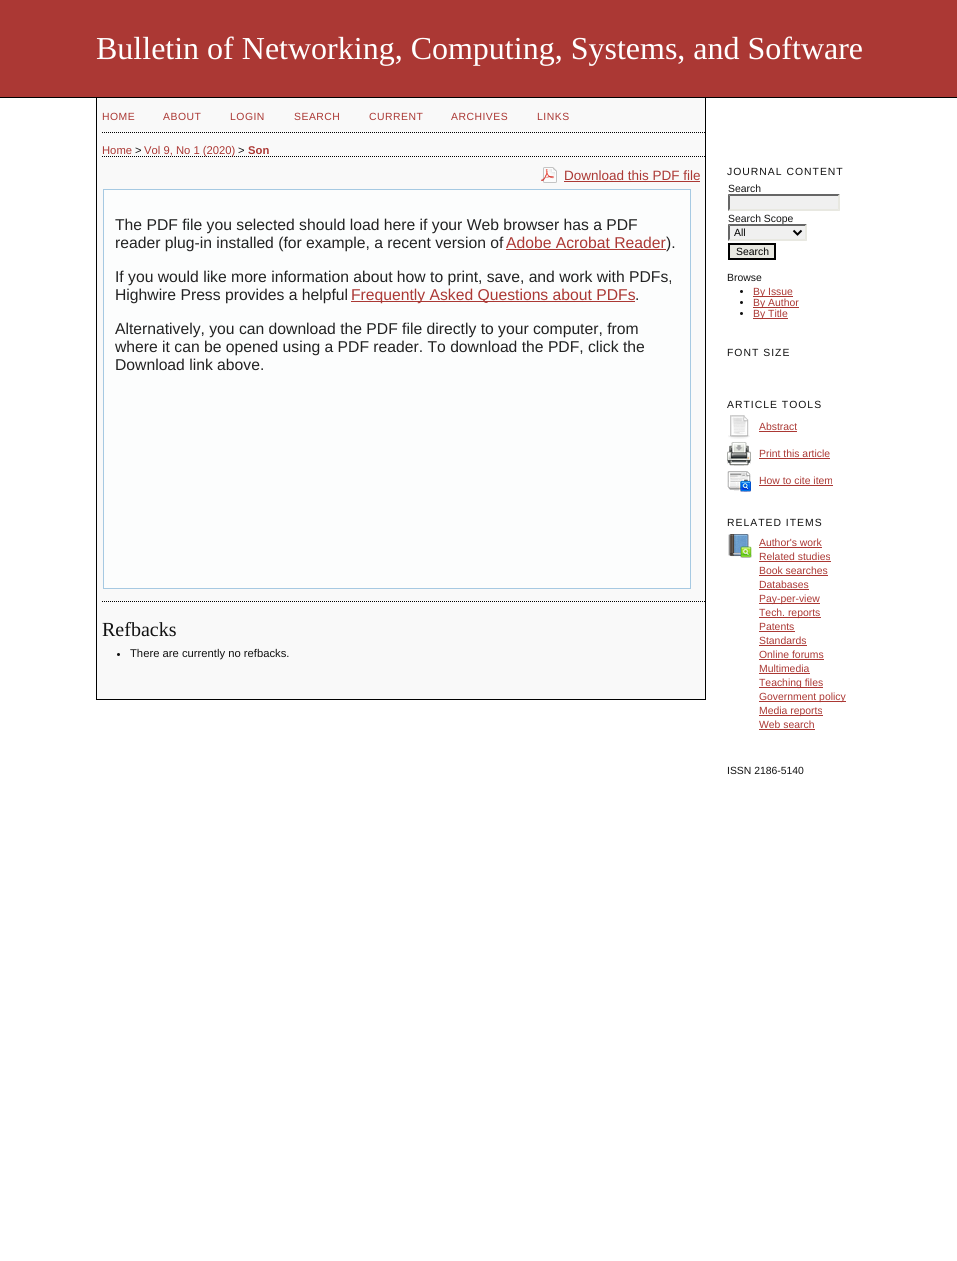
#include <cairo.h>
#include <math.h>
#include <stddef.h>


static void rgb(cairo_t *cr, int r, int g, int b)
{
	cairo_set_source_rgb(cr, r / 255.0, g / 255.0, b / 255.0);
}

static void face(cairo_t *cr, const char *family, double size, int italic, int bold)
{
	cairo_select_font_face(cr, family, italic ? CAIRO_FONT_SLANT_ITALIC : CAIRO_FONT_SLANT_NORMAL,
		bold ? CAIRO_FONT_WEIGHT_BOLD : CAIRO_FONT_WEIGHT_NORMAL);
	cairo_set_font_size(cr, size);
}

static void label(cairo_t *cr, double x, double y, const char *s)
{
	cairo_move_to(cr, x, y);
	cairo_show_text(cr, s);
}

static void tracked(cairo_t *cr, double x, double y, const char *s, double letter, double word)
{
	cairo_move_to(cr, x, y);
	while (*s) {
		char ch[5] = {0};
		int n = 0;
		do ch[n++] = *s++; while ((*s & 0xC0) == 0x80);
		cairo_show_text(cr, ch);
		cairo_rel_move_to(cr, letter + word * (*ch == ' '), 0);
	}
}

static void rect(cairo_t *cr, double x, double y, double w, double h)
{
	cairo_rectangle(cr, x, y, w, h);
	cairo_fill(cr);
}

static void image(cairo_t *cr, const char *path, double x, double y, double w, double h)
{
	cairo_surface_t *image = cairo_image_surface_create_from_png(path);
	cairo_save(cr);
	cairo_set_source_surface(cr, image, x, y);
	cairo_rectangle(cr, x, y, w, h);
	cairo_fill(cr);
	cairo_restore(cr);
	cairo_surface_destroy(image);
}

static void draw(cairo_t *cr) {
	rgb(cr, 255, 255, 255);
	cairo_paint(cr);
	rgb(cr, 171, 56, 52);
	rect(cr, 0, 0, 957, 97);
	rgb(cr, 0, 0, 0);
	rect(cr, 0, 97, 957, 1);
	face(cr, "Liberation Serif", 32, 0, 0);
	rgb(cr, 255, 255, 255);
	label(cr, 96, 59, "Bulletin of Networking, Computing, Systems, and Software");
	rgb(cr, 249, 249, 249);
	rect(cr, 97, 98, 608, 601);
	rgb(cr, 0, 0, 0);
	rect(cr, 705, 98, 1, 602);
	rect(cr, 96, 699, 610, 1);
	rect(cr, 96, 98, 1, 602);
	cairo_new_path(cr);
	cairo_move_to(cr, 102, 132.5);
	cairo_line_to(cr, 705, 132.5);
	cairo_set_line_width(cr, 1);
	cairo_set_dash(cr, (double[]){1, 1}, 2, 0);
	cairo_stroke(cr);
	face(cr, "Liberation Sans", 10.4, 0, 0);
	rgb(cr, 171, 56, 52);
	tracked(cr, 102, 120, "HOME", 0.5, 0);
	tracked(cr, 163, 120, "ABOUT", 0.5, 0);
	tracked(cr, 230, 120, "LOGIN", 0.5, 0);
	tracked(cr, 294, 120, "SEARCH", 0.5, 0);
	tracked(cr, 369, 120, "CURRENT", 0.5, 0);
	tracked(cr, 451, 120, "ARCHIVES", 0.5, 0);
	tracked(cr, 537, 120, "LINKS", 0.5, 0);
	cairo_new_path(cr);
	cairo_move_to(cr, 102, 156.5);
	cairo_line_to(cr, 705, 156.5);
	rgb(cr, 0, 0, 0);
	cairo_stroke(cr);
	face(cr, "Liberation Sans", 11.25, 0, 0);
	rgb(cr, 171, 56, 52);
	label(cr, 102, 154, "Home");
	rgb(cr, 17, 17, 17);
	label(cr, 135, 154, ">");
	rgb(cr, 171, 56, 52);
	label(cr, 144, 154, "Vol 9, No 1 (2020)");
	rgb(cr, 17, 17, 17);
	label(cr, 238, 154, ">");
	face(cr, "Liberation Sans", 11.25, 0, 1);
	rgb(cr, 171, 56, 52);
	label(cr, 248, 154, "Son");
	image(cr, "image0.png", 541, 167, 16, 16);
	face(cr, "Liberation Sans", 13.5, 0, 0);
	label(cr, 564, 180, "Download this PDF file");
	rect(cr, 564, 181, 136, 1);
	rgb(cr, 252, 253, 253);
	cairo_rectangle(cr, 103.5, 189.5, 587, 399);
	cairo_fill_preserve(cr);
	rgb(cr, 166, 201, 226);
	cairo_set_dash(cr, NULL, 0, 0);
	cairo_stroke(cr);
	face(cr, "Liberation Sans", 15.7, 0, 0);
	rgb(cr, 34, 34, 34);
	label(cr, 115, 230, "The PDF file you selected should load here if your Web browser has a PDF");
	label(cr, 115, 248, "reader plug-in installed (for example, a recent version of");
	rgb(cr, 171, 56, 52);
	label(cr, 506, 248, "Adobe Acrobat Reader");
	rect(cr, 506, 249, 160, 1);
	rgb(cr, 34, 34, 34);
	label(cr, 666, 248, ").");
	label(cr, 115, 282, "If you would like more information about how to print, save, and work with PDFs,");
	label(cr, 115, 300, "Highwire Press provides a helpful");
	rgb(cr, 171, 56, 52);
	rect(cr, 351, 301, 284, 1);
	label(cr, 351, 300, "Frequently Asked Questions about PDFs");
	rgb(cr, 34, 34, 34);
	label(cr, 635, 300, ".");
	label(cr, 115, 334, "Alternatively, you can download the PDF file directly to your computer, from");
	label(cr, 115, 352, "where it can be opened using a PDF reader. To download the PDF, click the");
	label(cr, 115, 370, "Download link above.");
	cairo_new_path(cr);
	cairo_move_to(cr, 102, 601.5);
	cairo_line_to(cr, 705, 601.5);
	rgb(cr, 0, 0, 0);
	cairo_set_dash(cr, (double[]){1, 1}, 2, 0);
	cairo_stroke(cr);
	face(cr, "Liberation Serif", 20, 0, 0);
	rgb(cr, 17, 17, 17);
	label(cr, 102, 636, "Refbacks");
	cairo_new_path(cr);
	cairo_arc(cr, 118.5, 654.5, 1.5, 0, 2 * M_PI);
	cairo_fill(cr);
	face(cr, "Liberation Sans", 11.25, 0, 0);
	label(cr, 130, 657, "There are currently no refbacks.");
	face(cr, "Liberation Sans", 10.4, 0, 0);
	tracked(cr, 727, 175, "JOURNAL CONTENT", 1, 0);
	label(cr, 728, 192, "Search");
	rgb(cr, 240, 240, 240);
	rect(cr, 728, 194, 112, 17);
	rgb(cr, 102, 102, 102);
	cairo_new_path(cr);
	cairo_move_to(cr, 728, 194);
	cairo_line_to(cr, 840, 194);
	cairo_line_to(cr, 838, 196);
	cairo_line_to(cr, 730, 196);
	cairo_close_path(cr);
	cairo_fill(cr);
	rgb(cr, 232, 232, 225);
	cairo_new_path(cr);
	cairo_move_to(cr, 840, 194);
	cairo_line_to(cr, 840, 211);
	cairo_line_to(cr, 838, 209);
	cairo_line_to(cr, 838, 196);
	cairo_close_path(cr);
	cairo_fill(cr);
	cairo_new_path(cr);
	cairo_move_to(cr, 840, 211);
	cairo_line_to(cr, 728, 211);
	cairo_line_to(cr, 730, 209);
	cairo_line_to(cr, 838, 209);
	cairo_close_path(cr);
	cairo_fill(cr);
	rgb(cr, 102, 102, 102);
	cairo_new_path(cr);
	cairo_move_to(cr, 728, 211);
	cairo_line_to(cr, 728, 194);
	cairo_line_to(cr, 730, 196);
	cairo_line_to(cr, 730, 209);
	cairo_close_path(cr);
	cairo_fill(cr);
	rgb(cr, 17, 17, 17);
	label(cr, 728, 222, "Search Scope");
	rgb(cr, 240, 240, 240);
	rect(cr, 728, 224, 79, 17);
	rgb(cr, 102, 102, 102);
	cairo_new_path(cr);
	cairo_move_to(cr, 728, 224);
	cairo_line_to(cr, 807, 224);
	cairo_line_to(cr, 805, 226);
	cairo_line_to(cr, 730, 226);
	cairo_close_path(cr);
	cairo_fill(cr);
	rgb(cr, 232, 232, 225);
	cairo_new_path(cr);
	cairo_move_to(cr, 807, 224);
	cairo_line_to(cr, 807, 241);
	cairo_line_to(cr, 805, 239);
	cairo_line_to(cr, 805, 226);
	cairo_close_path(cr);
	cairo_fill(cr);
	cairo_new_path(cr);
	cairo_move_to(cr, 807, 241);
	cairo_line_to(cr, 728, 241);
	cairo_line_to(cr, 730, 239);
	cairo_line_to(cr, 805, 239);
	cairo_close_path(cr);
	cairo_fill(cr);
	rgb(cr, 102, 102, 102);
	cairo_new_path(cr);
	cairo_move_to(cr, 728, 241);
	cairo_line_to(cr, 728, 224);
	cairo_line_to(cr, 730, 226);
	cairo_line_to(cr, 730, 239);
	cairo_close_path(cr);
	cairo_fill(cr);
	cairo_new_path(cr);
	cairo_move_to(cr, 793.5, 230.5);
	cairo_line_to(cr, 797.5, 234.5);
	cairo_line_to(cr, 801.5, 230.5);
	rgb(cr, 0, 0, 0);
	cairo_set_line_width(cr, 2);
	cairo_set_dash(cr, NULL, 0, 0);
	cairo_stroke(cr);
	label(cr, 734, 236, "All");
	rgb(cr, 232, 232, 225);
	cairo_rectangle(cr, 729, 244, 46, 15);
	cairo_fill_preserve(cr);
	rgb(cr, 0, 0, 0);
	cairo_stroke(cr);
	label(cr, 736, 255, "Search");
	rgb(cr, 17, 17, 17);
	label(cr, 727, 281, "Browse");
	cairo_new_path(cr);
	cairo_arc(cr, 741.5, 291.5, 1.5, 0, 2 * M_PI);
	cairo_fill(cr);
	rgb(cr, 171, 56, 52);
	rect(cr, 753, 296, 40, 1);
	label(cr, 753, 295, "By Issue");
	rgb(cr, 17, 17, 17);
	cairo_new_path(cr);
	cairo_arc(cr, 741.5, 302.5, 1.5, 0, 2 * M_PI);
	cairo_fill(cr);
	rgb(cr, 171, 56, 52);
	rect(cr, 753, 307, 46, 1);
	label(cr, 753, 306, "By Author");
	rgb(cr, 17, 17, 17);
	cairo_new_path(cr);
	cairo_arc(cr, 741.5, 313.5, 1.5, 0, 2 * M_PI);
	cairo_fill(cr);
	rgb(cr, 171, 56, 52);
	rect(cr, 753, 318, 35, 1);
	label(cr, 753, 317, "By Title");
	rgb(cr, 17, 17, 17);
	tracked(cr, 727, 356, "FONT SIZE", 1, 0);
	tracked(cr, 727, 408, "ARTICLE TOOLS", 1, 0);
	image(cr, "image1.png", 728, 415, 22, 24);
	rgb(cr, 171, 56, 52);
	label(cr, 759, 430, "Abstract");
	rect(cr, 759, 431, 38, 1);
	image(cr, "image2.png", 727, 442, 24, 24);
	label(cr, 759, 457, "Print this article");
	rect(cr, 759, 458, 71, 1);
	image(cr, "image3.png", 727, 471, 24, 21);
	label(cr, 759, 484, "How to cite item");
	rect(cr, 759, 485, 74, 1);
	rgb(cr, 17, 17, 17);
	tracked(cr, 727, 526, "RELATED ITEMS", 1, 0);
	image(cr, "image4.png", 728, 534, 24, 24);
	rgb(cr, 171, 56, 52);
	label(cr, 759, 546, "Author's work");
	rect(cr, 759, 547, 63, 1);
	label(cr, 759, 560, "Related studies");
	rect(cr, 759, 561, 72, 1);
	label(cr, 759, 574, "Book searches");
	rect(cr, 759, 575, 69, 1);
	label(cr, 759, 588, "Databases");
	rect(cr, 759, 589, 50, 1);
	rect(cr, 759, 603, 61, 1);
	label(cr, 759, 602, "Pay-per-view");
	rect(cr, 759, 617, 62, 1);
	label(cr, 759, 616, "Tech. reports");
	label(cr, 759, 630, "Patents");
	rect(cr, 759, 631, 36, 1);
	label(cr, 759, 644, "Standards");
	rect(cr, 759, 645, 48, 1);
	label(cr, 759, 658, "Online forums");
	rect(cr, 759, 659, 65, 1);
	label(cr, 759, 672, "Multimedia");
	rect(cr, 759, 673, 51, 1);
	rect(cr, 759, 687, 64, 1);
	label(cr, 759, 686, "Teaching files");
	rect(cr, 759, 701, 87, 1);
	label(cr, 759, 700, "Government policy");
	rect(cr, 759, 715, 64, 1);
	label(cr, 759, 714, "Media reports");
	label(cr, 759, 728, "Web search");
	rect(cr, 759, 729, 56, 1);
	rgb(cr, 17, 17, 17);
	label(cr, 727, 774, "ISSN 2186-5140");
}

int main(void) {
	cairo_surface_t *surface = cairo_image_surface_create(CAIRO_FORMAT_RGB24, 957, 1261);
	cairo_t *cr = cairo_create(surface);
	cairo_font_options_t *options = cairo_font_options_create();
	cairo_font_options_set_hint_metrics(options, CAIRO_HINT_METRICS_OFF);
	cairo_font_options_set_hint_style(options, CAIRO_HINT_STYLE_NONE);
	cairo_set_font_options(cr, options);
	cairo_set_miter_limit(cr, 4);
	draw(cr);
	cairo_surface_write_to_png(surface, "render.png");
	cairo_font_options_destroy(options);
	cairo_destroy(cr);
	cairo_surface_destroy(surface);
	return 0;
}
